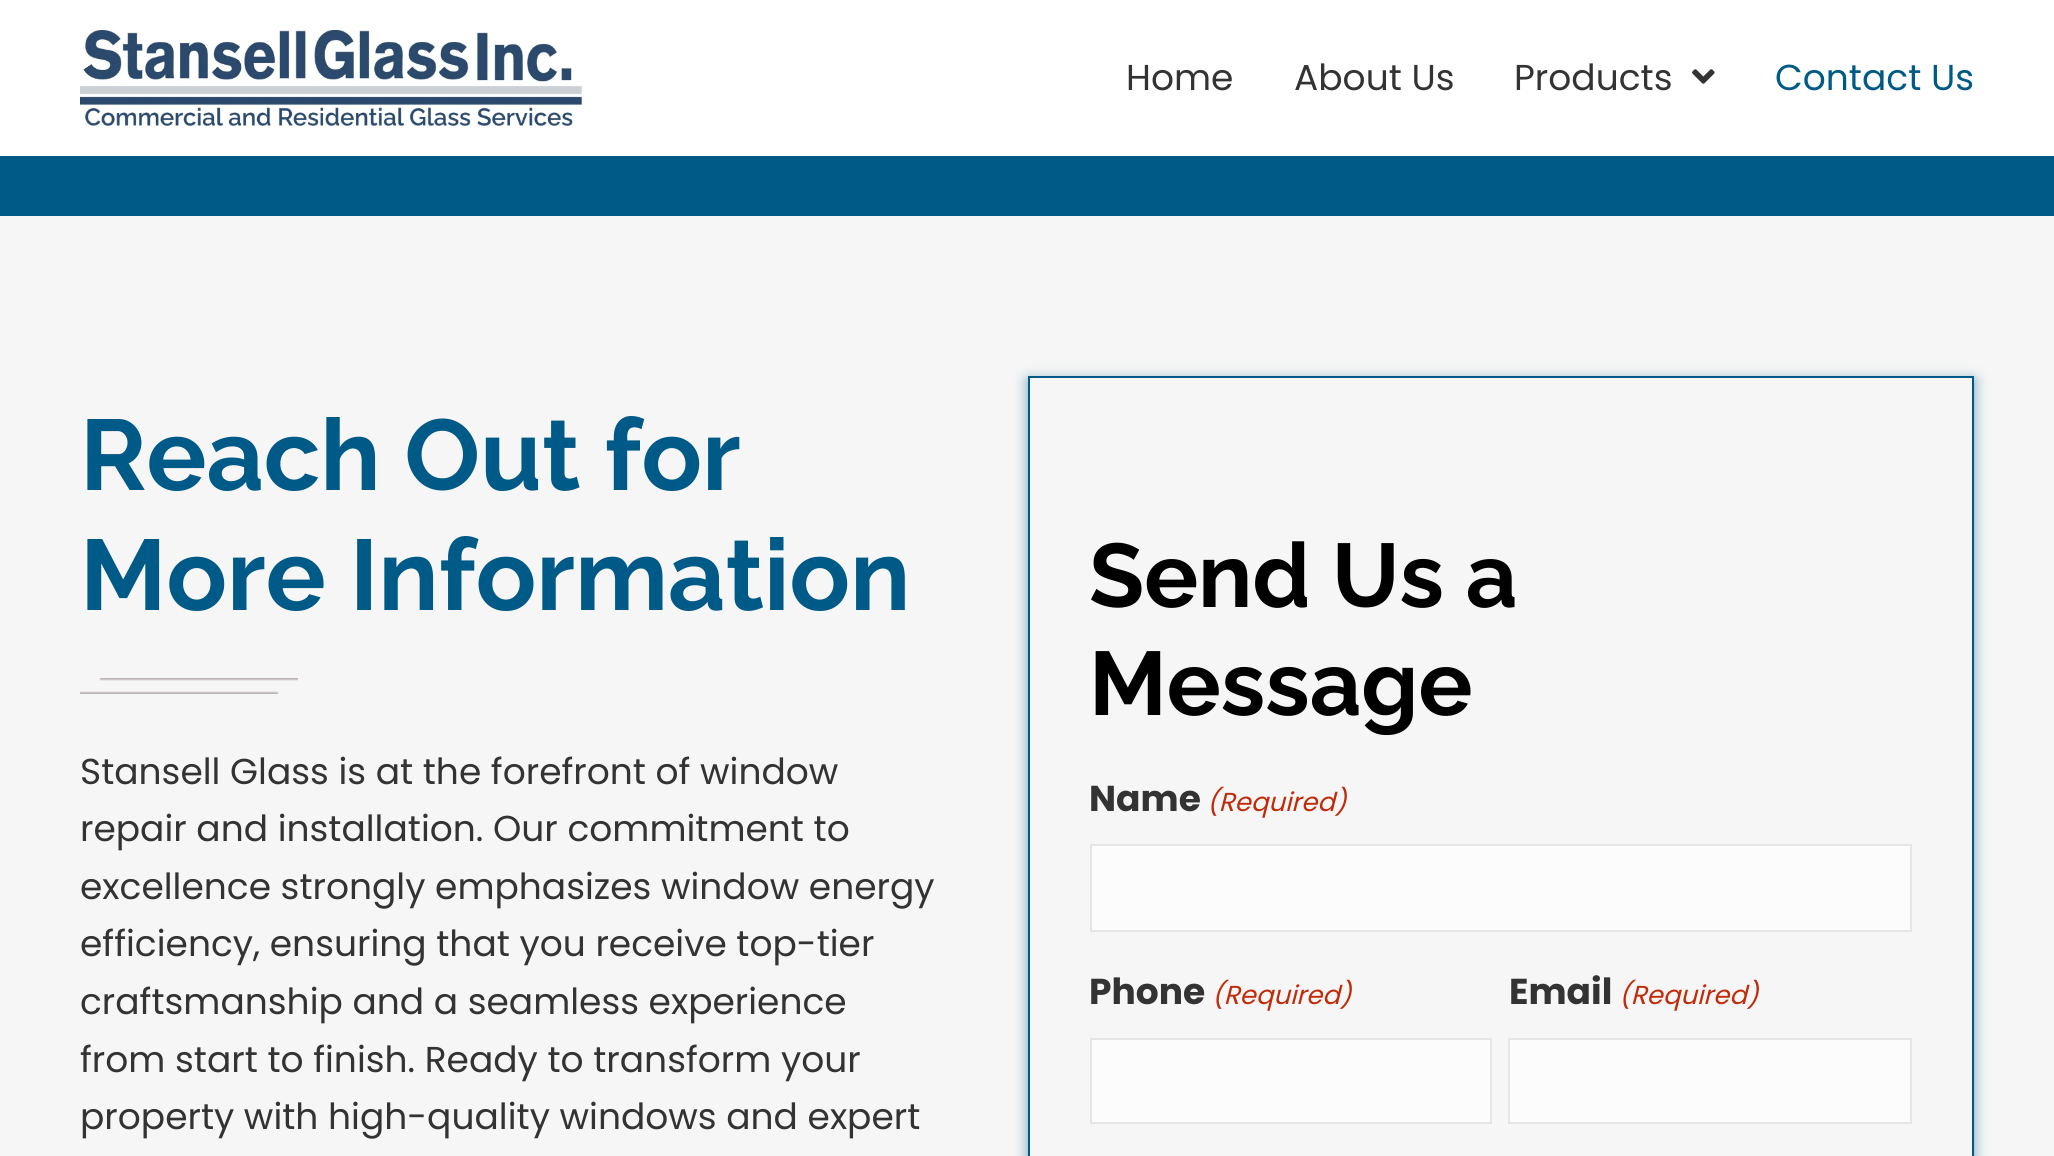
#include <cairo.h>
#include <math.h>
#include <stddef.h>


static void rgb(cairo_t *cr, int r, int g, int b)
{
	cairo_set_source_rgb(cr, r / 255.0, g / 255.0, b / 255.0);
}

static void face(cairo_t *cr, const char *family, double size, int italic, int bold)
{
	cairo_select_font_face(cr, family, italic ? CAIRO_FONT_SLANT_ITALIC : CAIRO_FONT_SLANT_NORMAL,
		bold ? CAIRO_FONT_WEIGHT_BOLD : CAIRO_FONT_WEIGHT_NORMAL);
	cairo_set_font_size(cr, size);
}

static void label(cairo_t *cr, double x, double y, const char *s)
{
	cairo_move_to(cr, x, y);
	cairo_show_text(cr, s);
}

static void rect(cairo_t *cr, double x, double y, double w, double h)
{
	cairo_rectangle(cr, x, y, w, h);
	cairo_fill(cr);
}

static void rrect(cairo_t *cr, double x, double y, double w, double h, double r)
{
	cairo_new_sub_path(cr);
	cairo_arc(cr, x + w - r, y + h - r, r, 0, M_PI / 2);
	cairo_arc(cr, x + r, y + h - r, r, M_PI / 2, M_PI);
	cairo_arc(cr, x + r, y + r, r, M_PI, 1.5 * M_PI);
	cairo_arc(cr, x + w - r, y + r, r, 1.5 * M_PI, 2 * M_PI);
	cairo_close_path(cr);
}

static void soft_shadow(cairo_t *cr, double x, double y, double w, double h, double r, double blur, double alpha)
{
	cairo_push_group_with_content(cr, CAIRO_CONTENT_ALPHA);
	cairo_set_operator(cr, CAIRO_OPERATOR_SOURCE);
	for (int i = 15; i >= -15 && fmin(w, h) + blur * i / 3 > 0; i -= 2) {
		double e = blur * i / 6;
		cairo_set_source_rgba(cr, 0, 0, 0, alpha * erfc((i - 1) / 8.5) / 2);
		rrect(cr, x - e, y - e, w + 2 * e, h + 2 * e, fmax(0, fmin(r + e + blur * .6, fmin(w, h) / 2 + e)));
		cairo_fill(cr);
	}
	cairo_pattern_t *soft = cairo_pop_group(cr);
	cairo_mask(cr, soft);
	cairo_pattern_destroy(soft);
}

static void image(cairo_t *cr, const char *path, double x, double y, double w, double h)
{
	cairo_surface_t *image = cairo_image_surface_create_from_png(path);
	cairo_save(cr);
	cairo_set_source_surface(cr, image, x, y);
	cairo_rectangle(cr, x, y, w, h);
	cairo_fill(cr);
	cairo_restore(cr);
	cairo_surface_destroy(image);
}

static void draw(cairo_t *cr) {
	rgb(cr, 255, 255, 255);
	cairo_paint(cr);
	image(cr, "image0.png", 80, 30, 502, 96);
	face(cr, "Poppins", 36, 0, 0);
	rgb(cr, 51, 51, 51);
	label(cr, 1126, 90, "Home");
	label(cr, 1294, 90, "About Us");
	label(cr, 1514, 90, "Products");
	image(cr, "image1.png", 1692, 69, 23, 15);
	rgb(cr, 0, 90, 135);
	label(cr, 1775, 90, "Contact Us");
	rgb(cr, 246, 246, 246);
	rect(cr, 0, 216, 2054, 940);
	rgb(cr, 0, 90, 135);
	rect(cr, 0, 156, 2054, 60);
	face(cr, "Raleway Thin", 100, 0, 0);
	label(cr, 80, 490, "Reach Out for");
	label(cr, 80, 610, "More Information");
	image(cr, "image2.png", 80, 678, 218, 16);
	face(cr, "Poppins", 36, 0, 0);
	rgb(cr, 51, 51, 51);
	label(cr, 80, 784, "Stansell Glass is at the forefront of window");
	label(cr, 80, 841, "repair and installation. Our commitment to");
	label(cr, 80, 899, "excellence strongly emphasizes window energy");
	label(cr, 80, 956, "efficiency, ensuring that you receive top-tier");
	label(cr, 80, 1014, "craftsmanship and a seamless experience");
	label(cr, 80, 1072, "from start to finish. Ready to transform your");
	label(cr, 80, 1129, "property with high-quality windows and expert");
	cairo_save(cr);
	cairo_set_fill_rule(cr, CAIRO_FILL_RULE_EVEN_ODD);
	cairo_new_path(cr);
	cairo_move_to(cr, 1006, 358);
	cairo_line_to(cr, 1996, 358);
	cairo_line_to(cr, 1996, 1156);
	cairo_line_to(cr, 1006, 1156);
	cairo_close_path(cr);
	cairo_move_to(cr, 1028, 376);
	cairo_line_to(cr, 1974, 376);
	cairo_line_to(cr, 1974, 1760);
	cairo_line_to(cr, 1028, 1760);
	cairo_close_path(cr);
	cairo_clip(cr);
	rgb(cr, 0, 90, 135);
	soft_shadow(cr, 1028, 380, 946, 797, 0, 7, 0.56);
	cairo_restore(cr);
	cairo_rectangle(cr, 1029, 377, 944, 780);
	rgb(cr, 0, 90, 135);
	cairo_stroke(cr);
	face(cr, "Raleway Thin", 90, 0, 0);
	rgb(cr, 0, 0, 0);
	label(cr, 1089, 607, "Send Us a");
	label(cr, 1089, 715, "Message");
	face(cr, "Poppins", 36, 0, 1);
	rgb(cr, 51, 51, 51);
	label(cr, 1089, 811, "Name");
	face(cr, "Poppins", 26, 1, 0);
	rgb(cr, 192, 43, 10);
	label(cr, 1207, 811, "(Required)");
	rgb(cr, 252, 252, 252);
	cairo_rectangle(cr, 1091, 845, 820, 86);
	cairo_fill_preserve(cr);
	rgb(cr, 230, 230, 230);
	cairo_stroke(cr);
	face(cr, "Poppins", 36, 0, 1);
	rgb(cr, 51, 51, 51);
	label(cr, 1089, 1004, "Phone");
	face(cr, "Poppins", 26, 1, 0);
	rgb(cr, 192, 43, 10);
	label(cr, 1212, 1004, "(Required)");
	rgb(cr, 252, 252, 252);
	cairo_rectangle(cr, 1091, 1039, 400, 84);
	cairo_fill_preserve(cr);
	rgb(cr, 230, 230, 230);
	cairo_stroke(cr);
	face(cr, "Poppins", 36, 0, 1);
	rgb(cr, 51, 51, 51);
	label(cr, 1509, 1004, "Email");
	face(cr, "Poppins", 26, 1, 0);
	rgb(cr, 192, 43, 10);
	label(cr, 1619, 1004, "(Required)");
	rgb(cr, 252, 252, 252);
	cairo_rectangle(cr, 1509, 1039, 402, 84);
	cairo_fill_preserve(cr);
	rgb(cr, 230, 230, 230);
	cairo_stroke(cr);
}

int main(void) {
	cairo_surface_t *surface = cairo_image_surface_create(CAIRO_FORMAT_RGB24, 2054, 1156);
	cairo_t *cr = cairo_create(surface);
	cairo_font_options_t *options = cairo_font_options_create();
	cairo_font_options_set_hint_metrics(options, CAIRO_HINT_METRICS_OFF);
	cairo_font_options_set_hint_style(options, CAIRO_HINT_STYLE_NONE);
	cairo_set_font_options(cr, options);
	cairo_set_miter_limit(cr, 4);
	draw(cr);
	cairo_surface_write_to_png(surface, "render.png");
	cairo_font_options_destroy(options);
	cairo_destroy(cr);
	cairo_surface_destroy(surface);
	return 0;
}
